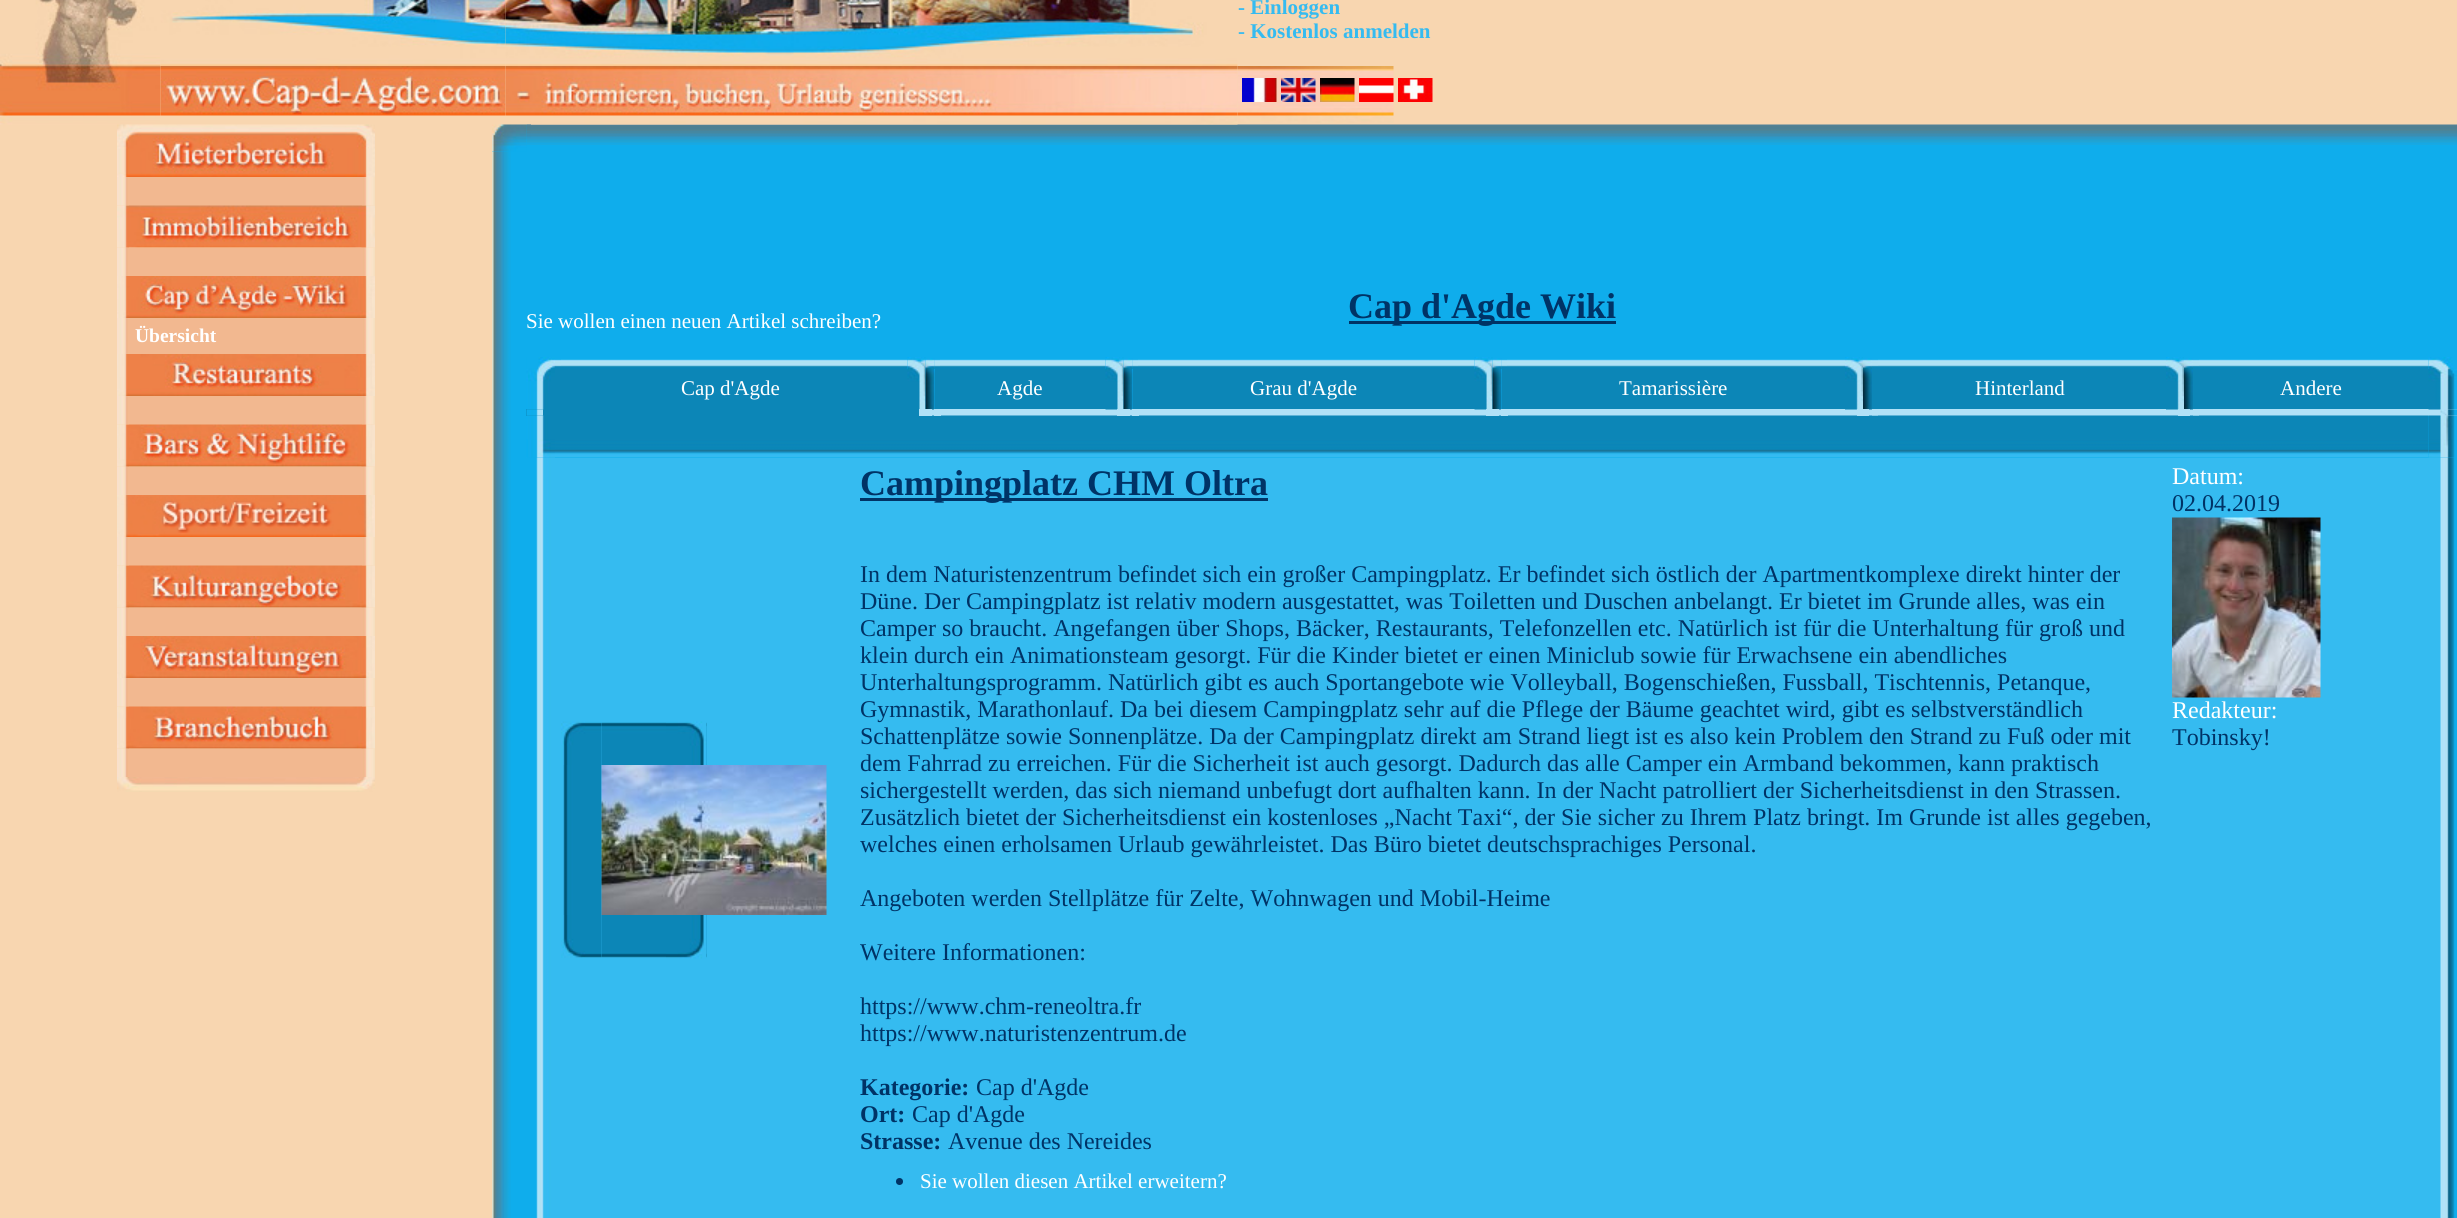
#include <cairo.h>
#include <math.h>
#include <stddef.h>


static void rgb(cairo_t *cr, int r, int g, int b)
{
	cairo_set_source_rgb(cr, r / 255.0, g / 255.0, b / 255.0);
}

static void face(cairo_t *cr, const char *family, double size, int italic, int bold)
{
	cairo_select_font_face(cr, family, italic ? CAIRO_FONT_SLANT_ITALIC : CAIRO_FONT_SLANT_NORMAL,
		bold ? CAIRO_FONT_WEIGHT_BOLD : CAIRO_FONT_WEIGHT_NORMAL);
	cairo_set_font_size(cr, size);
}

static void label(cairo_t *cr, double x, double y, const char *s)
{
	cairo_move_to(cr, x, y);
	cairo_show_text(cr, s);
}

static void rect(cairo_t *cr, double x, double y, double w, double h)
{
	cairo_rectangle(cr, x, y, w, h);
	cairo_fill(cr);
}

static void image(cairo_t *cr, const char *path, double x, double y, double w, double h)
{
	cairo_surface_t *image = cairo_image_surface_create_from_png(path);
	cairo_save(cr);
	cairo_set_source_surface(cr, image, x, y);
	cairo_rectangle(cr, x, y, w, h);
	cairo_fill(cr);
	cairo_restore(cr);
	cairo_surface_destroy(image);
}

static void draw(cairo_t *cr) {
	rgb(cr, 15, 173, 236);
	cairo_paint(cr);
	rgb(cr, 248, 214, 176);
	rect(cr, 0, 0, 2457, 125);
	image(cr, "image0.png", 0, 0, 161, 125);
	image(cr, "image1.png", 160, 0, 346, 66);
	image(cr, "image2.png", 505, 0, 338, 66);
	image(cr, "image3.png", 843, 0, 395, 66);
	face(cr, "Liberation Serif", 21, 0, 1);
	rgb(cr, 53, 187, 240);
	label(cr, 1238, 14, "- Einloggen");
	label(cr, 1238, 38, "- Kostenlos anmelden");
	image(cr, "image4.png", 160, 66, 346, 50);
	image(cr, "image6.png", 1237, 66, 157, 57);
	image(cr, "image36.png", 526, 124, 1931, 21);
	image(cr, "image5.png", 505, 66, 733, 59);
	image(cr, "image7.png", 1242, 78, 35, 24);
	image(cr, "image8.png", 1281, 78, 35, 24);
	image(cr, "image9.png", 1320, 78, 35, 24);
	image(cr, "image10.png", 1359, 78, 35, 24);
	image(cr, "image11.png", 1398, 78, 35, 24);
	rgb(cr, 248, 214, 176);
	rect(cr, 0, 125, 492, 1093);
	image(cr, "image12.png", 117, 124, 258, 53);
	image(cr, "image13.png", 117, 177, 12, 29);
	rgb(cr, 242, 184, 144);
	rect(cr, 129, 177, 233, 29);
	image(cr, "image14.png", 362, 177, 13, 29);
	image(cr, "image16.png", 117, 247, 12, 29);
	rect(cr, 129, 248, 233, 28);
	image(cr, "image17.png", 361, 247, 14, 29);
	image(cr, "image15.png", 117, 205, 258, 43);
	image(cr, "image18.png", 117, 276, 258, 42);
	image(cr, "image19.png", 117, 318, 12, 36);
	rect(cr, 129, 318, 233, 36);
	face(cr, "Liberation Serif", 19.5, 0, 1);
	rgb(cr, 255, 255, 255);
	label(cr, 135, 342, "Übersicht");
	image(cr, "image20.png", 362, 318, 13, 36);
	image(cr, "image21.png", 117, 354, 258, 42);
	image(cr, "image13.png", 117, 396, 12, 29);
	rgb(cr, 242, 184, 144);
	rect(cr, 129, 396, 233, 29);
	image(cr, "image22.png", 362, 396, 13, 29);
	image(cr, "image24.png", 117, 466, 12, 29);
	rect(cr, 129, 467, 233, 28);
	image(cr, "image25.png", 361, 466, 14, 29);
	image(cr, "image23.png", 117, 424, 258, 43);
	image(cr, "image26.png", 117, 495, 258, 42);
	image(cr, "image13.png", 117, 537, 12, 29);
	rect(cr, 129, 537, 233, 29);
	image(cr, "image27.png", 362, 537, 13, 29);
	image(cr, "image24.png", 117, 607, 12, 29);
	rect(cr, 129, 608, 233, 28);
	image(cr, "image29.png", 361, 607, 14, 29);
	image(cr, "image28.png", 117, 565, 258, 43);
	image(cr, "image30.png", 117, 636, 258, 42);
	image(cr, "image13.png", 117, 678, 12, 29);
	rect(cr, 129, 678, 233, 29);
	image(cr, "image31.png", 362, 678, 13, 29);
	image(cr, "image24.png", 117, 748, 12, 29);
	rect(cr, 129, 749, 233, 28);
	image(cr, "image33.png", 361, 748, 14, 29);
	image(cr, "image32.png", 117, 706, 258, 43);
	image(cr, "image34.png", 117, 777, 258, 15);
	image(cr, "image38.png", 492, 151, 19, 1067);
	image(cr, "image35.png", 492, 124, 35, 28);
	image(cr, "image37.png", 526, 124, 5, 15);
	face(cr, "Liberation Serif", 21, 0, 0);
	rgb(cr, 255, 255, 255);
	label(cr, 526, 328, "Sie wollen einen neuen Artikel schreiben?");
	rgb(cr, 0, 51, 102);
	rect(cr, 1349, 321, 267, 3);
	face(cr, "Liberation Serif", 36, 0, 1);
	label(cr, 1348, 318, "Cap d'Agde Wiki");
	rgb(cr, 12, 134, 183);
	rect(cr, 526, 409, 29, 7);
	image(cr, "image39.png", 526, 357, 29, 53);
	image(cr, "image40.png", 555, 359, 353, 10);
	image(cr, "image41.png", 555, 359, 6, 7);
	rect(cr, 555, 369, 353, 47);
	rect(cr, 908, 409, 18, 7);
	rgb(cr, 177, 225, 247);
	rect(cr, 925, 409, 1532, 7);
	image(cr, "image42.png", 907, 357, 19, 53);
	face(cr, "Liberation Serif", 21, 0, 0);
	rgb(cr, 255, 255, 255);
	label(cr, 681, 395, "Cap d'Agde");
	image(cr, "image43.png", 526, 409, 17, 7);
	image(cr, "image61.png", 555, 415, 1874, 43);
	rgb(cr, 177, 225, 247);
	rect(cr, 919, 409, 7, 7);
	image(cr, "image45.png", 934, 359, 172, 10);
	image(cr, "image44.png", 925, 358, 10, 52);
	image(cr, "image46.png", 934, 359, 6, 10);
	rgb(cr, 12, 134, 183);
	rect(cr, 935, 369, 171, 40);
	image(cr, "image47.png", 1105, 357, 19, 53);
	rgb(cr, 255, 255, 255);
	label(cr, 997, 395, "Agde");
	rgb(cr, 177, 225, 247);
	rect(cr, 925, 409, 7, 7);
	rect(cr, 934, 409, 7, 7);
	rect(cr, 1117, 409, 7, 7);
	image(cr, "image49.png", 1132, 359, 343, 10);
	image(cr, "image48.png", 1123, 358, 10, 52);
	image(cr, "image46.png", 1132, 359, 6, 10);
	rgb(cr, 12, 134, 183);
	rect(cr, 1133, 369, 342, 40);
	image(cr, "image50.png", 1474, 357, 19, 53);
	rgb(cr, 255, 255, 255);
	label(cr, 1250, 395, "Grau d'Agde");
	rgb(cr, 177, 225, 247);
	rect(cr, 1123, 409, 7, 7);
	rect(cr, 1132, 409, 7, 7);
	rect(cr, 1486, 409, 7, 7);
	image(cr, "image51.png", 1501, 359, 344, 10);
	image(cr, "image48.png", 1492, 358, 10, 52);
	image(cr, "image46.png", 1501, 359, 6, 10);
	image(cr, "image52.png", 1845, 357, 18, 53);
	rgb(cr, 12, 134, 183);
	rect(cr, 1502, 369, 343, 40);
	rgb(cr, 255, 255, 255);
	label(cr, 1619, 395, "Tamarissière");
	rgb(cr, 177, 225, 247);
	rect(cr, 1492, 409, 7, 7);
	rect(cr, 1501, 409, 7, 7);
	rect(cr, 1857, 409, 6, 7);
	image(cr, "image53.png", 1863, 358, 9, 52);
	image(cr, "image54.png", 1872, 359, 294, 10);
	image(cr, "image41.png", 1872, 359, 6, 7);
	image(cr, "image55.png", 2166, 357, 18, 53);
	rgb(cr, 12, 134, 183);
	rect(cr, 1872, 369, 294, 40);
	rgb(cr, 255, 255, 255);
	label(cr, 1975, 395, "Hinterland");
	rgb(cr, 177, 225, 247);
	rect(cr, 1863, 409, 6, 7);
	rgb(cr, 136, 202, 231);
	rect(cr, 1872, 415, 6, 1);
	rgb(cr, 177, 225, 247);
	rect(cr, 2178, 409, 6, 7);
	image(cr, "image56.png", 2184, 358, 9, 52);
	image(cr, "image57.png", 2193, 359, 236, 10);
	image(cr, "image41.png", 2193, 359, 6, 7);
	rgb(cr, 12, 134, 183);
	rect(cr, 2193, 369, 236, 40);
	image(cr, "image58.png", 2428, 357, 29, 53);
	rgb(cr, 255, 255, 255);
	label(cr, 2280, 395, "Andere");
	rgb(cr, 177, 225, 247);
	rect(cr, 2184, 409, 6, 7);
	rgb(cr, 136, 202, 231);
	rect(cr, 2193, 415, 6, 1);
	image(cr, "image59.png", 2440, 409, 17, 7);
	image(cr, "image63.png", 536, 457, 19, 761);
	image(cr, "image60.png", 526, 415, 29, 43);
	rgb(cr, 53, 187, 240);
	rect(cr, 555, 458, 1874, 760);
	image(cr, "image73.png", 2428, 457, 27, 761);
	image(cr, "image62.png", 2428, 415, 29, 43);
	image(cr, "image65.png", 601, 722, 106, 43);
	image(cr, "image64.png", 561, 721, 41, 44);
	image(cr, "image66.png", 666, 721, 41, 44);
	image(cr, "image67.png", 563, 765, 39, 150);
	image(cr, "image68.png", 601, 765, 226, 150);
	image(cr, "image70.png", 601, 915, 106, 43);
	image(cr, "image69.png", 561, 915, 41, 43);
	image(cr, "image71.png", 666, 915, 41, 44);
	rgb(cr, 0, 51, 102);
	rect(cr, 860, 498, 408, 3);
	face(cr, "Liberation Serif", 36, 0, 1);
	label(cr, 860, 495, "Campingplatz CHM Oltra");
	face(cr, "Liberation Serif", 24, 0, 0);
	label(cr, 860, 582, "In dem Naturistenzentrum befindet sich ein großer Campingplatz. Er befindet sich östlich der Apartmentkomplexe direkt hinter der");
	label(cr, 860, 609, "Düne. Der Campingplatz ist relativ modern ausgestattet, was Toiletten und Duschen anbelangt. Er bietet im Grunde alles, was ein");
	label(cr, 860, 636, "Camper so braucht. Angefangen über Shops, Bäcker, Restaurants, Telefonzellen etc. Natürlich ist für die Unterhaltung für groß und");
	label(cr, 860, 663, "klein durch ein Animationsteam gesorgt. Für die Kinder bietet er einen Miniclub sowie für Erwachsene ein abendliches");
	label(cr, 860, 690, "Unterhaltungsprogramm. Natürlich gibt es auch Sportangebote wie Volleyball, Bogenschießen, Fussball, Tischtennis, Petanque,");
	label(cr, 860, 717, "Gymnastik, Marathonlauf. Da bei diesem Campingplatz sehr auf die Pflege der Bäume geachtet wird, gibt es selbstverständlich");
	label(cr, 860, 744, "Schattenplätze sowie Sonnenplätze. Da der Campingplatz direkt am Strand liegt ist es also kein Problem den Strand zu Fuß oder mit");
	label(cr, 860, 771, "dem Fahrrad zu erreichen. Für die Sicherheit ist auch gesorgt. Dadurch das alle Camper ein Armband bekommen, kann praktisch");
	label(cr, 860, 798, "sichergestellt werden, das sich niemand unbefugt dort aufhalten kann. In der Nacht patrolliert der Sicherheitsdienst in den Strassen.");
	label(cr, 860, 825, "Zusätzlich bietet der Sicherheitsdienst ein kostenloses „Nacht Taxi“, der Sie sicher zu Ihrem Platz bringt. Im Grunde ist alles gegeben,");
	label(cr, 860, 852, "welches einen erholsamen Urlaub gewährleistet. Das Büro bietet deutschsprachiges Personal.");
	label(cr, 860, 906, "Angeboten werden Stellplätze für Zelte, Wohnwagen und Mobil-Heime");
	label(cr, 860, 960, "Weitere Informationen:");
	label(cr, 860, 1014, "https://www.chm-reneoltra.fr");
	label(cr, 860, 1041, "https://www.naturistenzentrum.de");
	face(cr, "Liberation Serif", 24, 0, 1);
	label(cr, 860, 1095, "Kategorie:");
	face(cr, "Liberation Serif", 24, 0, 0);
	label(cr, 976, 1095, "Cap d'Agde");
	face(cr, "Liberation Serif", 24, 0, 1);
	label(cr, 860, 1122, "Ort:");
	face(cr, "Liberation Serif", 24, 0, 0);
	label(cr, 912, 1122, "Cap d'Agde");
	face(cr, "Liberation Serif", 24, 0, 1);
	label(cr, 860, 1149, "Strasse:");
	face(cr, "Liberation Serif", 24, 0, 0);
	label(cr, 948, 1149, "Avenue des Nereides");
	rgb(cr, 255, 255, 255);
	label(cr, 2172, 484, "Datum:");
	rgb(cr, 0, 51, 102);
	label(cr, 2172, 511, "02.04.2019");
	image(cr, "image72.png", 2172, 517, 149, 181);
	rgb(cr, 255, 255, 255);
	label(cr, 2172, 718, "Redakteur:");
	rgb(cr, 0, 51, 102);
	label(cr, 2172, 745, "Tobinsky!");
	cairo_new_path(cr);
	cairo_arc(cr, 899.5, 1181.5, 3.5, 0, 2 * M_PI);
	cairo_fill(cr);
	face(cr, "Liberation Serif", 21, 0, 0);
	rgb(cr, 255, 255, 255);
	label(cr, 920, 1188, "Sie wollen diesen Artikel erweitern?");
}

int main(void) {
	cairo_surface_t *surface = cairo_image_surface_create(CAIRO_FORMAT_RGB24, 2457, 1218);
	cairo_t *cr = cairo_create(surface);
	cairo_font_options_t *options = cairo_font_options_create();
	cairo_font_options_set_hint_metrics(options, CAIRO_HINT_METRICS_OFF);
	cairo_font_options_set_hint_style(options, CAIRO_HINT_STYLE_NONE);
	cairo_set_font_options(cr, options);
	cairo_set_miter_limit(cr, 4);
	draw(cr);
	cairo_surface_write_to_png(surface, "render.png");
	cairo_font_options_destroy(options);
	cairo_destroy(cr);
	cairo_surface_destroy(surface);
	return 0;
}
